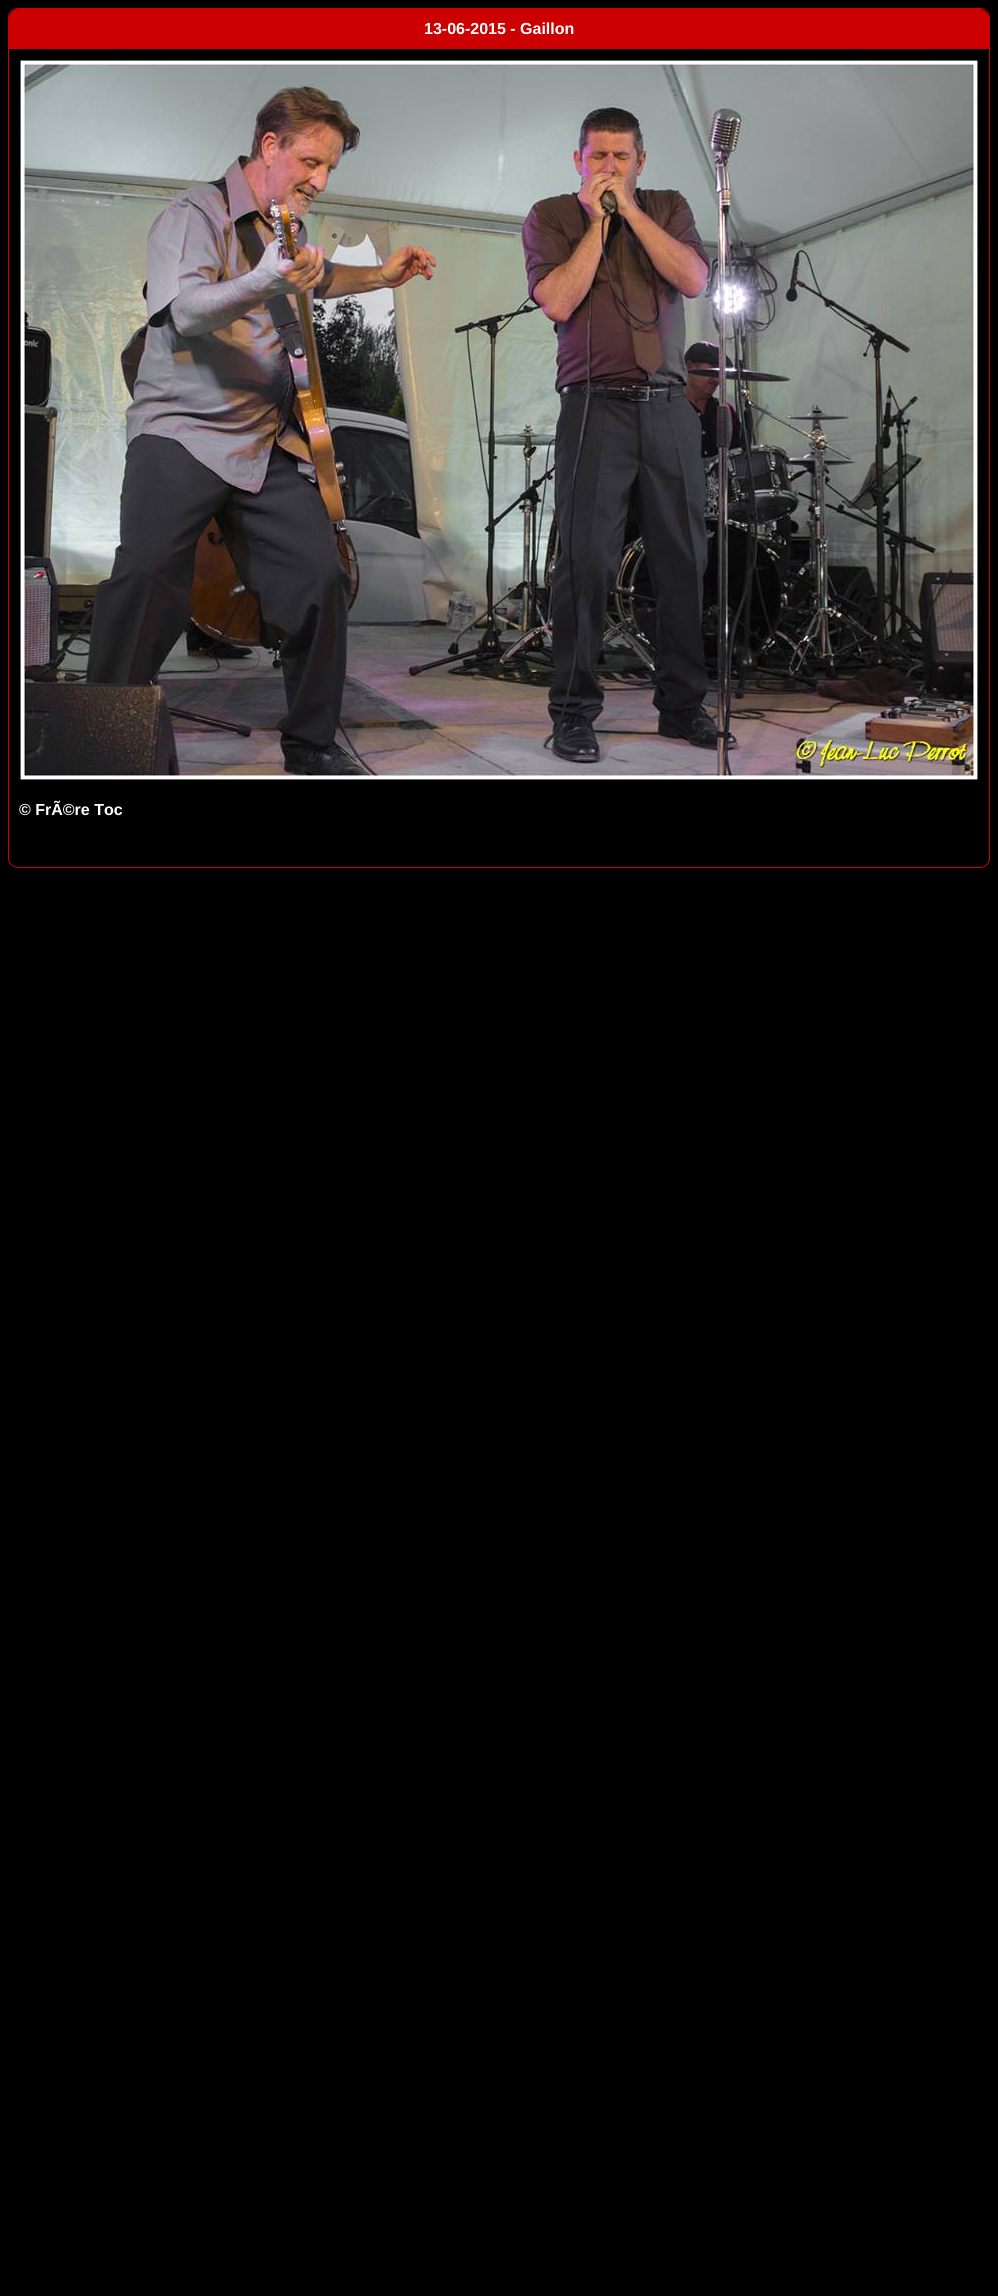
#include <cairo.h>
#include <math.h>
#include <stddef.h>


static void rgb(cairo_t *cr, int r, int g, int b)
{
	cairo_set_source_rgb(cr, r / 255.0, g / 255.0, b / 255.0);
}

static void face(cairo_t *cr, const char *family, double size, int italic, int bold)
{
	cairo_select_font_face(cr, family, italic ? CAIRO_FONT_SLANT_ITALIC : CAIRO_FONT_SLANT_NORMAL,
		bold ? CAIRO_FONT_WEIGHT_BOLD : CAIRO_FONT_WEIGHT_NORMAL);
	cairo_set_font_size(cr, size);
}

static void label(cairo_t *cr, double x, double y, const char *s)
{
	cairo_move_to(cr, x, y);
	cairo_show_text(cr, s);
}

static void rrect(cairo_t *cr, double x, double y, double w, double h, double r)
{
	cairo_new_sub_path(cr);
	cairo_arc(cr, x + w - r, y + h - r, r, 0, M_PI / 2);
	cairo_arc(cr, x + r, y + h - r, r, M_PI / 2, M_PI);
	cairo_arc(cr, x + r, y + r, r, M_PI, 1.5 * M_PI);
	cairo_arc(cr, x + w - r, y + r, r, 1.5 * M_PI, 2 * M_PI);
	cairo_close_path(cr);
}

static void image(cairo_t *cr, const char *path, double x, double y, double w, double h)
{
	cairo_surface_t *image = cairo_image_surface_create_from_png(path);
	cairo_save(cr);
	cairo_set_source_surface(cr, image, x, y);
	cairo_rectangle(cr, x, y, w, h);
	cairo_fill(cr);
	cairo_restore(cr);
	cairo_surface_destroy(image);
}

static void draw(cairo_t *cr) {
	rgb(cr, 0, 0, 0);
	cairo_paint(cr);
	rrect(cr, 8.5, 8.5, 981, 859, 9.5);
	rgb(cr, 204, 0, 0);
	cairo_set_line_width(cr, 1);
	cairo_stroke(cr);
	cairo_new_path(cr);
	cairo_move_to(cr, 19, 9.5);
	cairo_line_to(cr, 979, 9.5);
	cairo_curve_to(cr, 984, 9.5, 988.5, 14, 988.5, 19);
	cairo_line_to(cr, 988.5, 48.5);
	cairo_line_to(cr, 9.5, 48.5);
	cairo_line_to(cr, 9.5, 19);
	cairo_curve_to(cr, 9.5, 14, 14, 9.5, 19, 9.5);
	cairo_close_path(cr);
	cairo_fill_preserve(cr);
	cairo_stroke(cr);
	face(cr, "Liberation Sans", 16, 0, 1);
	rgb(cr, 255, 255, 255);
	label(cr, 424, 34, "13-06-2015 - Gaillon");
	image(cr, "image0.png", 19, 59, 960, 722);
	label(cr, 19, 815, "© FrÃ©re Toc");
}

int main(void) {
	cairo_surface_t *surface = cairo_image_surface_create(CAIRO_FORMAT_RGB24, 998, 2296);
	cairo_t *cr = cairo_create(surface);
	cairo_font_options_t *options = cairo_font_options_create();
	cairo_font_options_set_hint_metrics(options, CAIRO_HINT_METRICS_OFF);
	cairo_font_options_set_hint_style(options, CAIRO_HINT_STYLE_NONE);
	cairo_set_font_options(cr, options);
	cairo_set_miter_limit(cr, 4);
	draw(cr);
	cairo_surface_write_to_png(surface, "render.png");
	cairo_font_options_destroy(options);
	cairo_destroy(cr);
	cairo_surface_destroy(surface);
	return 0;
}
